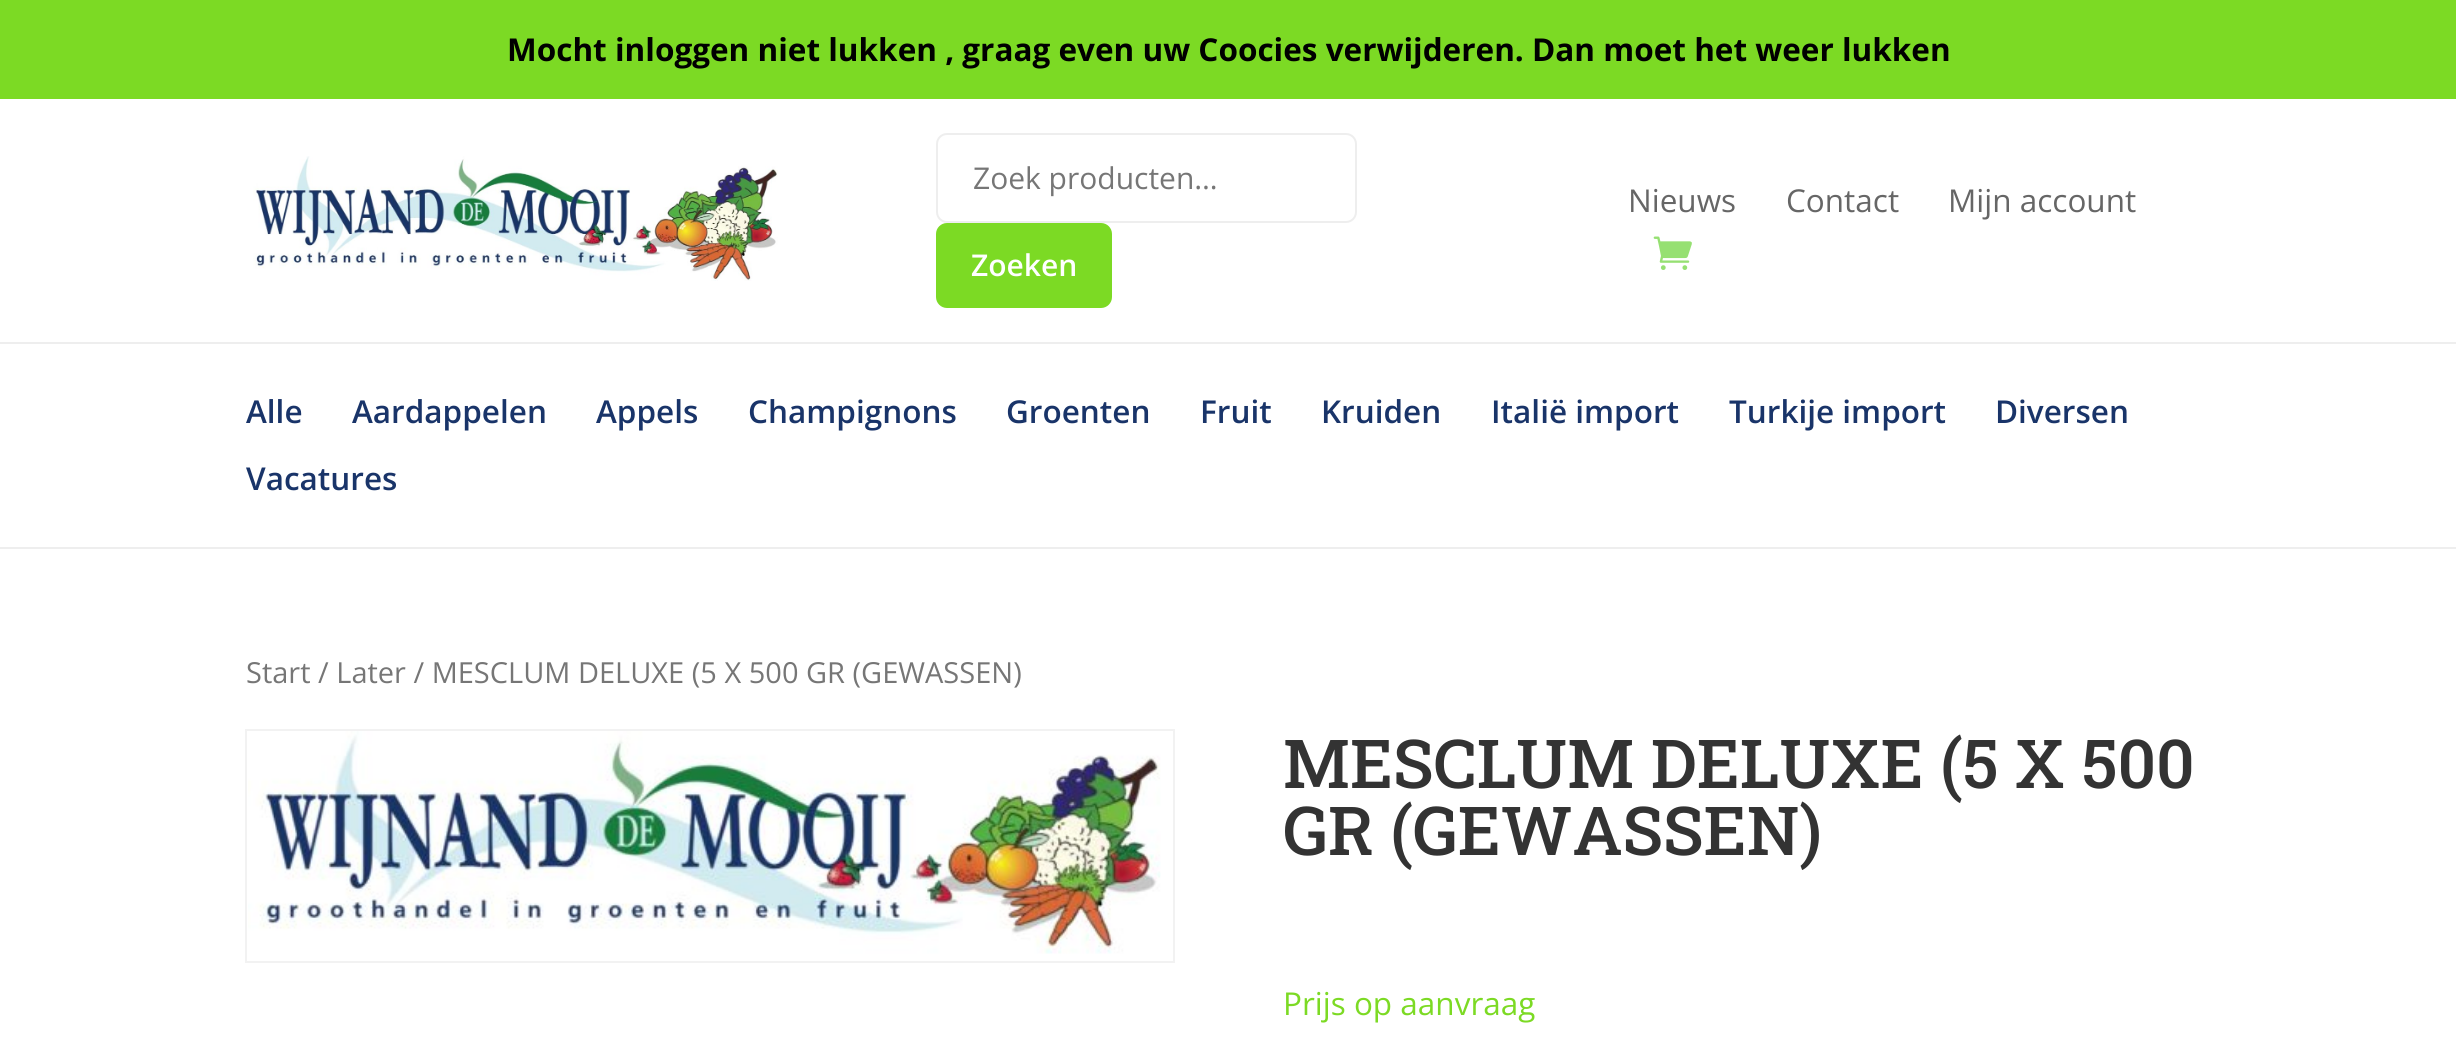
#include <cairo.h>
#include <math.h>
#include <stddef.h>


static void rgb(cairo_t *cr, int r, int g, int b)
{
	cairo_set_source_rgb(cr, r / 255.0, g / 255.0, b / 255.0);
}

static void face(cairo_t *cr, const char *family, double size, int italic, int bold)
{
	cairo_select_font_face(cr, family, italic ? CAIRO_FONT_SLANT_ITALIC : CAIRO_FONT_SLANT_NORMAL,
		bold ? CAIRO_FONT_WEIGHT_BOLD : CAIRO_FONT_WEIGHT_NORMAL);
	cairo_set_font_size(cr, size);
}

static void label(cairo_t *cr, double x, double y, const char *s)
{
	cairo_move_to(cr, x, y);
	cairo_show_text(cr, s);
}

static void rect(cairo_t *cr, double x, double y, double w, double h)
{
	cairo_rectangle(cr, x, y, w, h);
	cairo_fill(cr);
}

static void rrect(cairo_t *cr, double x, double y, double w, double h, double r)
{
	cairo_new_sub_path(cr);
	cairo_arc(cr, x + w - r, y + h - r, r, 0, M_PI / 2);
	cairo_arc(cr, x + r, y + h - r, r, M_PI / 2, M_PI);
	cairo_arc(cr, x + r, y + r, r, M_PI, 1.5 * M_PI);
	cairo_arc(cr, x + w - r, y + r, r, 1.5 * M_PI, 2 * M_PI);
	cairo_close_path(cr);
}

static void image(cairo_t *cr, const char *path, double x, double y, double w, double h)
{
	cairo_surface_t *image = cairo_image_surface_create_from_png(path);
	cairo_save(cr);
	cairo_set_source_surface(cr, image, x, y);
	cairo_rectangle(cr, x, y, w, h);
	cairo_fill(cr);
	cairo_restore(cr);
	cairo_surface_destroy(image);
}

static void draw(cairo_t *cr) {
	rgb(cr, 255, 255, 255);
	cairo_paint(cr);
	rgb(cr, 124, 218, 36);
	rect(cr, 0, 0, 2456, 99);
	face(cr, "Open Sans", 31.5, 0, 1);
	rgb(cr, 0, 0, 0);
	label(cr, 507, 61, "Mocht inloggen niet lukken , graag even uw Coocies verwijderen. Dan moet het weer lukken");
	image(cr, "image0.png", 253, 156, 525, 125);
	rrect(cr, 937, 134, 419, 88, 10);
	rgb(cr, 238, 238, 238);
	cairo_stroke(cr);
	face(cr, "Open Sans", 30, 0, 0);
	rgb(cr, 118, 118, 118);
	label(cr, 973, 189, "Zoek producten…");
	rgb(cr, 124, 218, 36);
	rrect(cr, 936, 223, 176, 85, 11);
	cairo_fill(cr);
	face(cr, "Open Sans SemiBold", 30, 0, 0);
	rgb(cr, 255, 255, 255);
	label(cr, 971, 276, "Zoeken");
	face(cr, "Open Sans", 31.5, 0, 0);
	rgb(cr, 102, 102, 102);
	label(cr, 1628, 212, "Nieuws");
	label(cr, 1786, 212, "Contact");
	label(cr, 1948, 212, "Mijn account");
	image(cr, "image1.png", 1653, 236, 39, 34);
	rgb(cr, 238, 238, 238);
	rect(cr, 0, 342, 2456, 2);
	rect(cr, 0, 547, 2456, 2);
	face(cr, "Open Sans SemiBold", 31.5, 0, 0);
	rgb(cr, 25, 52, 105);
	label(cr, 246, 423, "Alle");
	label(cr, 352, 423, "Aardappelen");
	label(cr, 596, 423, "Appels");
	label(cr, 748, 423, "Champignons");
	label(cr, 1006, 423, "Groenten");
	label(cr, 1200, 423, "Fruit");
	label(cr, 1321, 423, "Kruiden");
	label(cr, 1491, 423, "Italië import");
	label(cr, 1729, 423, "Turkije import");
	label(cr, 1995, 423, "Diversen");
	label(cr, 246, 490, "Vacatures");
	face(cr, "Open Sans", 29, 0, 0);
	rgb(cr, 118, 118, 118);
	label(cr, 246, 683, "Start / Later / MESCLUM DELUXE (5 X 500 GR (GEWASSEN)");
	cairo_rectangle(cr, 246, 730, 928, 232);
	rgb(cr, 242, 242, 242);
	cairo_stroke(cr);
	image(cr, "image2.png", 248, 731, 913, 223);
	face(cr, "Roboto Slab Medium", 67.5, 0, 0);
	rgb(cr, 51, 51, 51);
	label(cr, 1283, 788, "MESCLUM DELUXE (5 X 500");
	label(cr, 1283, 855, "GR (GEWASSEN)");
	face(cr, "Open Sans", 31.5, 0, 0);
	rgb(cr, 124, 218, 36);
	label(cr, 1283, 1015, "Prijs op aanvraag");
}

int main(void) {
	cairo_surface_t *surface = cairo_image_surface_create(CAIRO_FORMAT_RGB24, 2456, 1041);
	cairo_t *cr = cairo_create(surface);
	cairo_font_options_t *options = cairo_font_options_create();
	cairo_font_options_set_hint_metrics(options, CAIRO_HINT_METRICS_OFF);
	cairo_font_options_set_hint_style(options, CAIRO_HINT_STYLE_NONE);
	cairo_set_font_options(cr, options);
	cairo_set_miter_limit(cr, 4);
	draw(cr);
	cairo_surface_write_to_png(surface, "render.png");
	cairo_font_options_destroy(options);
	cairo_destroy(cr);
	cairo_surface_destroy(surface);
	return 0;
}
